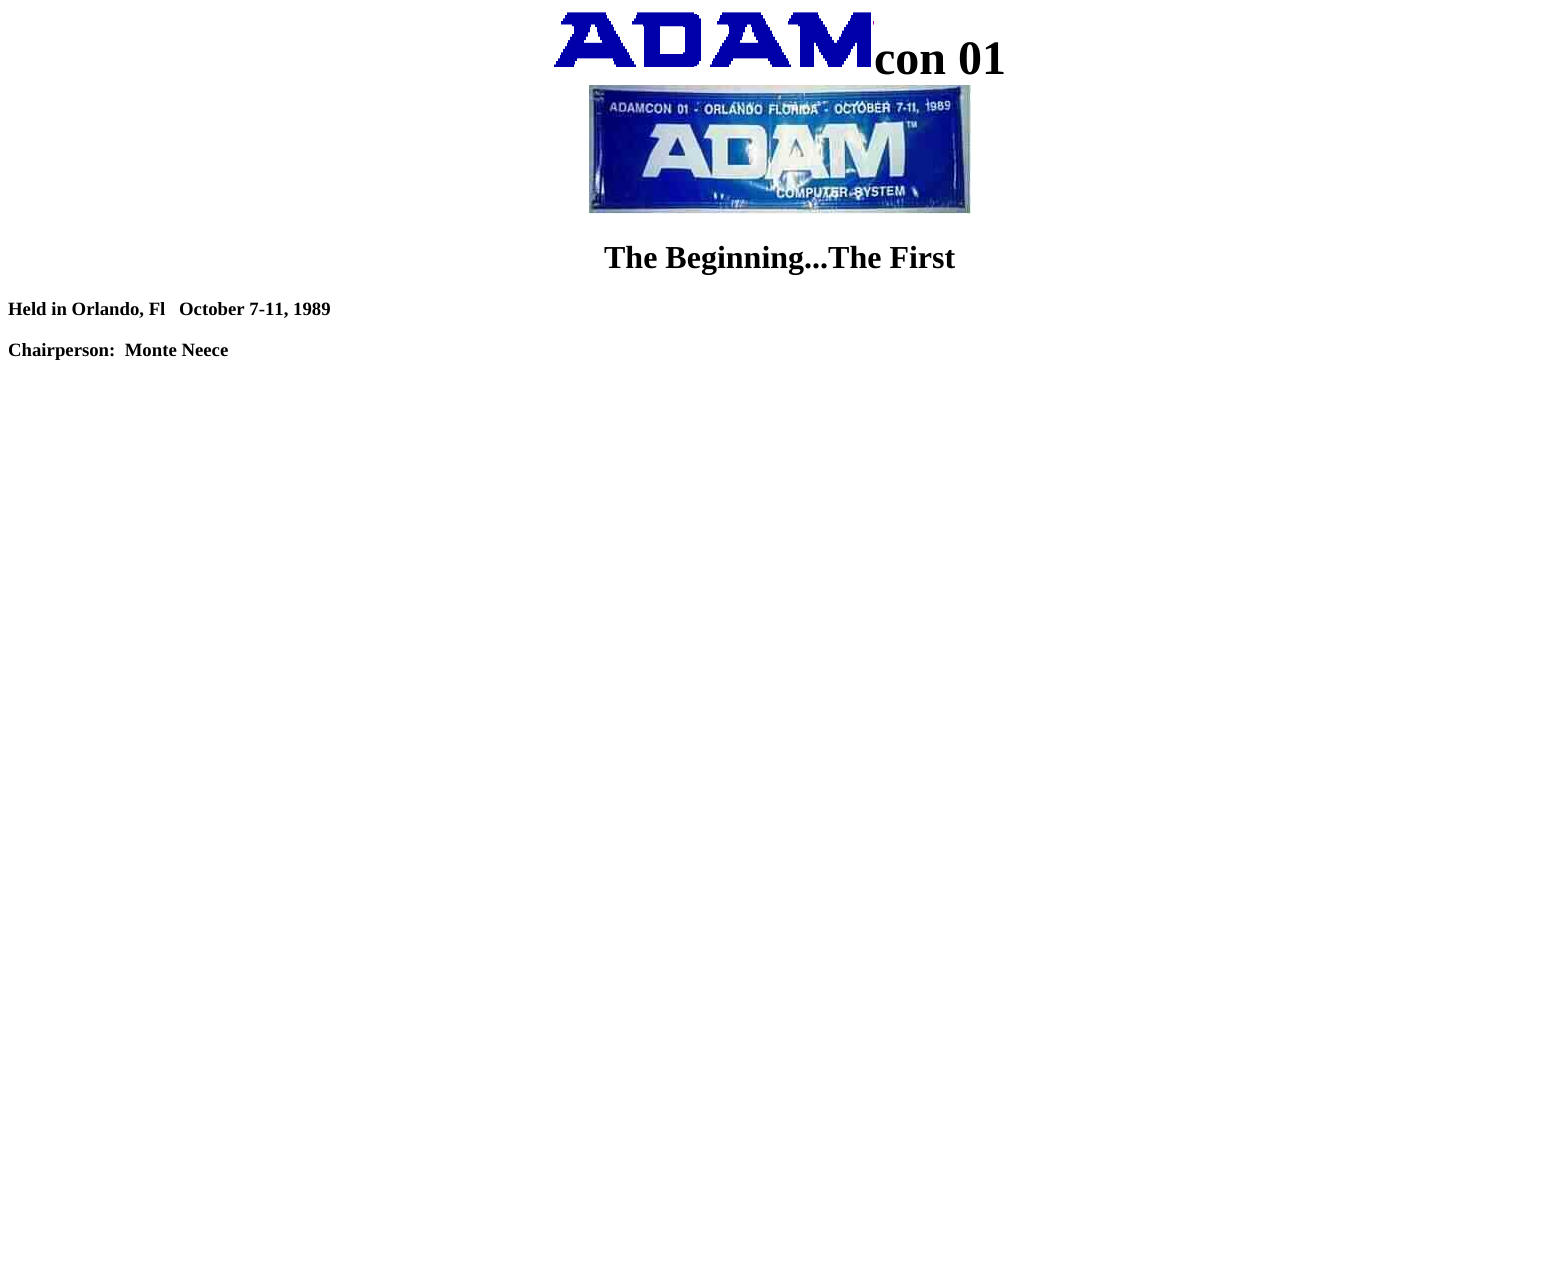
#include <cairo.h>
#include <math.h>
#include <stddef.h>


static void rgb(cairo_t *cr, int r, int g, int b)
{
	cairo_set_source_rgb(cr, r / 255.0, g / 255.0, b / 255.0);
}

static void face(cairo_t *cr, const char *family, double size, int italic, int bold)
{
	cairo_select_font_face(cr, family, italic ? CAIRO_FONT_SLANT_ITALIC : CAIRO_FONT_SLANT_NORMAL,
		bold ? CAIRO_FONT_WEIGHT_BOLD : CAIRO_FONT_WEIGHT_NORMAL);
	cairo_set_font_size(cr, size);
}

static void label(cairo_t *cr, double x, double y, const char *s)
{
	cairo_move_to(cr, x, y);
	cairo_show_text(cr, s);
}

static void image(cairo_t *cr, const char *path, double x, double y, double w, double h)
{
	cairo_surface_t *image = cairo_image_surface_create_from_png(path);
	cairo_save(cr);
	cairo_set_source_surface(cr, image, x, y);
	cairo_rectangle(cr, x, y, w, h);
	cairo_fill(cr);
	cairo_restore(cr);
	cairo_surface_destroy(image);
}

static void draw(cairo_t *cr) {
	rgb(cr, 255, 255, 255);
	cairo_paint(cr);
	image(cr, "image0.png", 554, 12, 320, 55);
	face(cr, "Liberation Serif", 48, 0, 1);
	rgb(cr, 0, 0, 0);
	label(cr, 874, 74, "con 01");
	image(cr, "image1.png", 589, 85, 382, 129);
	face(cr, "Liberation Serif", 32, 0, 1);
	label(cr, 604, 268, "The Beginning...The First");
	face(cr, "Liberation Serif", 18.75, 0, 1);
	label(cr, 8, 315, "Held in Orlando, Fl");
	label(cr, 179, 315, "October 7-11, 1989");
	label(cr, 8, 356, "Chairperson:  Monte Neece");
}

int main(void) {
	cairo_surface_t *surface = cairo_image_surface_create(CAIRO_FORMAT_RGB24, 1560, 1265);
	cairo_t *cr = cairo_create(surface);
	cairo_font_options_t *options = cairo_font_options_create();
	cairo_font_options_set_hint_metrics(options, CAIRO_HINT_METRICS_OFF);
	cairo_font_options_set_hint_style(options, CAIRO_HINT_STYLE_NONE);
	cairo_set_font_options(cr, options);
	cairo_set_miter_limit(cr, 4);
	draw(cr);
	cairo_surface_write_to_png(surface, "render.png");
	cairo_font_options_destroy(options);
	cairo_destroy(cr);
	cairo_surface_destroy(surface);
	return 0;
}
